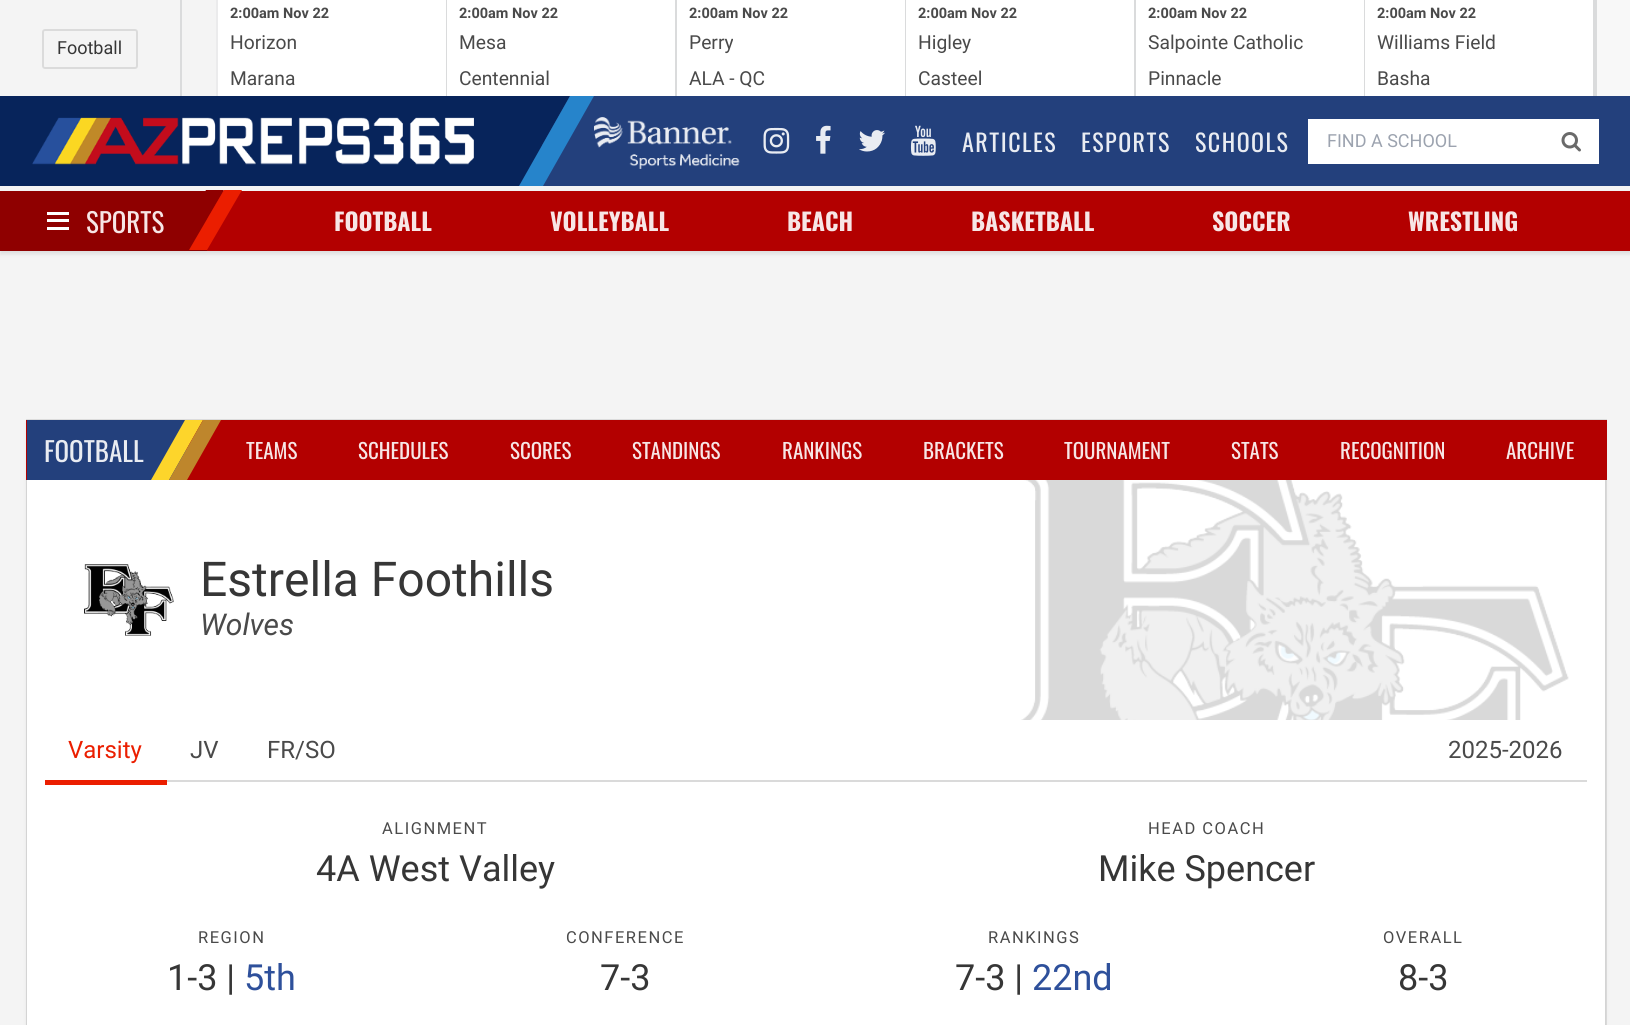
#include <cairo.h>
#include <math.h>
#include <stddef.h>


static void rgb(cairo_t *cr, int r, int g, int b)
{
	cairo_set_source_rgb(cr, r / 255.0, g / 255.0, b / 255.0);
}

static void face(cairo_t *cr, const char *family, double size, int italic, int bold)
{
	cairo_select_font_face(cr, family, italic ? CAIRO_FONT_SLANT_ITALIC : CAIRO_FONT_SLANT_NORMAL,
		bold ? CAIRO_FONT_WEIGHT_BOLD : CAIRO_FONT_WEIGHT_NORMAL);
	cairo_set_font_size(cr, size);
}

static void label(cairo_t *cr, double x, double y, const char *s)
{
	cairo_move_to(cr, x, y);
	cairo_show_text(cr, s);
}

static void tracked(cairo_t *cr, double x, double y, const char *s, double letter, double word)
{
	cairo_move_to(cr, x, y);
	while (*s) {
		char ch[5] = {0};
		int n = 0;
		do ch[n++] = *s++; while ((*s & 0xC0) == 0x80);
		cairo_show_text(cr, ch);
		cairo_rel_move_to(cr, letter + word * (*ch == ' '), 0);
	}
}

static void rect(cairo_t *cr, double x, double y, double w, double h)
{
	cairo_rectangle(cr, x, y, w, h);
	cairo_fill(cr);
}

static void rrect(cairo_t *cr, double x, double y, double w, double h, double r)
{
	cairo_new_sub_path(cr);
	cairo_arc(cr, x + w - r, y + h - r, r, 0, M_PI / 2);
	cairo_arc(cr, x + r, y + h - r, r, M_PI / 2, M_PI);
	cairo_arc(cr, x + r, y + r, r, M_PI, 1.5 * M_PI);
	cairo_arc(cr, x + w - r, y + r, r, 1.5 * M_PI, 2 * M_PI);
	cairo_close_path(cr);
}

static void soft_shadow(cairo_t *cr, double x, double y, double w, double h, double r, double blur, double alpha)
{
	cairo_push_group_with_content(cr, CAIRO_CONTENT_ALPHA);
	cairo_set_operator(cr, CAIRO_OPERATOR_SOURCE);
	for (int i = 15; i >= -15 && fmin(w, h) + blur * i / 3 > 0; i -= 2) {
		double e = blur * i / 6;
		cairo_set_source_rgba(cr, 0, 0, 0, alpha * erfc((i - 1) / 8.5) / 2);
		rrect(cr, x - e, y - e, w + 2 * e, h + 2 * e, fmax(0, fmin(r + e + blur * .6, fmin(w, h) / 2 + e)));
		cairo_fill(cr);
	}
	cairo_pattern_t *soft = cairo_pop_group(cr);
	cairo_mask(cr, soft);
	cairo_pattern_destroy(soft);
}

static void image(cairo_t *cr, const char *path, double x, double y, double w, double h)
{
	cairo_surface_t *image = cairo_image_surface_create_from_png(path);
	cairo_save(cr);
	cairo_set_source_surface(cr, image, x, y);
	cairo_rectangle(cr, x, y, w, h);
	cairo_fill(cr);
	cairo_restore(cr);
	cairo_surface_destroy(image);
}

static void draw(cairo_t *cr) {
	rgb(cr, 244, 244, 244);
	cairo_paint(cr);
	rrect(cr, 43, 30, 94, 38, 2);
	rgb(cr, 219, 219, 219);
	cairo_stroke(cr);
	face(cr, "Roboto", 18, 0, 0);
	rgb(cr, 54, 54, 54);
	label(cr, 57, 54, "Football");
	rgb(cr, 218, 219, 220);
	rect(cr, 180, 0, 2, 96);
	rgb(cr, 235, 235, 236);
	rect(cr, 216, 0, 2, 96);
	rgb(cr, 255, 255, 255);
	rect(cr, 218, 0, 228, 96);
	rgb(cr, 218, 219, 220);
	rect(cr, 446, 0, 1, 96);
	face(cr, "Roboto", 14.5, 0, 1);
	rgb(cr, 74, 74, 74);
	label(cr, 230, 18, "2:00am Nov 22");
	face(cr, "Roboto", 19.25, 0, 0);
	label(cr, 230, 49, "Horizon");
	label(cr, 230, 85, "Marana");
	rgb(cr, 255, 255, 255);
	rect(cr, 447, 0, 228, 96);
	rgb(cr, 218, 219, 220);
	rect(cr, 675, 0, 2, 96);
	face(cr, "Roboto", 14.5, 0, 1);
	rgb(cr, 74, 74, 74);
	label(cr, 459, 18, "2:00am Nov 22");
	face(cr, "Roboto", 19.25, 0, 0);
	label(cr, 459, 49, "Mesa");
	label(cr, 459, 85, "Centennial");
	rgb(cr, 255, 255, 255);
	rect(cr, 677, 0, 228, 96);
	rgb(cr, 218, 219, 220);
	rect(cr, 905, 0, 1, 96);
	face(cr, "Roboto", 14.5, 0, 1);
	rgb(cr, 74, 74, 74);
	label(cr, 689, 18, "2:00am Nov 22");
	face(cr, "Roboto", 19.25, 0, 0);
	label(cr, 689, 49, "Perry");
	label(cr, 689, 85, "ALA - QC");
	rgb(cr, 255, 255, 255);
	rect(cr, 906, 0, 228, 96);
	rgb(cr, 218, 219, 220);
	rect(cr, 1134, 0, 2, 96);
	face(cr, "Roboto", 14.5, 0, 1);
	rgb(cr, 74, 74, 74);
	label(cr, 918, 18, "2:00am Nov 22");
	face(cr, "Roboto", 19.25, 0, 0);
	label(cr, 918, 49, "Higley");
	label(cr, 918, 85, "Casteel");
	rgb(cr, 255, 255, 255);
	rect(cr, 1136, 0, 228, 96);
	rgb(cr, 218, 219, 220);
	rect(cr, 1364, 0, 1, 96);
	face(cr, "Roboto", 14.5, 0, 1);
	rgb(cr, 74, 74, 74);
	label(cr, 1148, 18, "2:00am Nov 22");
	face(cr, "Roboto", 19.25, 0, 0);
	label(cr, 1148, 49, "Salpointe Catholic");
	label(cr, 1148, 85, "Pinnacle");
	rgb(cr, 255, 255, 255);
	rect(cr, 1365, 0, 228, 96);
	rgb(cr, 218, 219, 220);
	rect(cr, 1593, 0, 4, 96);
	face(cr, "Roboto", 14.5, 0, 1);
	rgb(cr, 74, 74, 74);
	label(cr, 1377, 18, "2:00am Nov 22");
	face(cr, "Roboto", 19.25, 0, 0);
	label(cr, 1377, 49, "Williams Field");
	label(cr, 1377, 85, "Basha");
	rgb(cr, 248, 248, 248);
	rect(cr, 1597, 0, 33, 96);
	rgb(cr, 35, 64, 124);
	rect(cr, 542, 96, 1088, 90);
	rgb(cr, 7, 36, 91);
	rect(cr, 0, 96, 542, 90);
	image(cr, "image0.png", 32, 117, 442, 48);
	cairo_new_path(cr);
	cairo_move_to(cr, 540, 96);
	cairo_line_to(cr, 570, 96);
	cairo_line_to(cr, 519, 186);
	cairo_line_to(cr, 489, 186);
	cairo_close_path(cr);
	cairo_fill(cr);
	rgb(cr, 38, 132, 203);
	cairo_new_path(cr);
	cairo_move_to(cr, 570, 96);
	cairo_line_to(cr, 594, 96);
	cairo_line_to(cr, 543, 186);
	cairo_line_to(cr, 519, 186);
	cairo_close_path(cr);
	cairo_fill(cr);
	image(cr, "image1.png", 594, 117, 146, 52);
	image(cr, "image2.png", 763, 127, 27, 27);
	image(cr, "image3.png", 816, 125, 15, 29);
	image(cr, "image4.png", 859, 130, 26, 22);
	image(cr, "image5.png", 910, 125, 26, 31);
	face(cr, "Oswald", 24, 0, 0);
	rgb(cr, 233, 236, 242);
	tracked(cr, 962, 152, "ARTICLES", 1.5, 0);
	tracked(cr, 1081, 152, "ESPORTS", 1.5, 0);
	tracked(cr, 1195, 152, "SCHOOLS", 1.5, 0);
	rgb(cr, 255, 255, 255);
	rect(cr, 1308, 119, 291, 45);
	face(cr, "Roboto", 18, 0, 0);
	rgb(cr, 156, 163, 175);
	label(cr, 1327, 147, "FIND A SCHOOL");
	image(cr, "image6.png", 1561, 132, 20, 20);
	rgb(cr, 10, 10, 10);
	soft_shadow(cr, 0, 194, 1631, 60, 0, 2, 0.1);
	rgb(cr, 179, 0, 0);
	rect(cr, 207, 191, 1423, 60);
	rgb(cr, 143, 0, 0);
	rect(cr, 0, 191, 207, 60);
	rgb(cr, 255, 255, 255);
	rect(cr, 47, 212, 22, 3);
	rect(cr, 47, 219, 22, 3);
	rect(cr, 47, 227, 22, 3);
	face(cr, "Oswald", 27, 0, 0);
	rgb(cr, 247, 230, 230);
	label(cr, 86, 233, "SPORTS");
	rgb(cr, 143, 0, 0);
	cairo_new_path(cr);
	cairo_move_to(cr, 206, 190);
	cairo_line_to(cr, 224, 190);
	cairo_line_to(cr, 189, 250);
	cairo_line_to(cr, 171, 250);
	cairo_close_path(cr);
	cairo_fill(cr);
	rgb(cr, 235, 30, 0);
	cairo_new_path(cr);
	cairo_move_to(cr, 224, 190);
	cairo_line_to(cr, 242, 190);
	cairo_line_to(cr, 207, 250);
	cairo_line_to(cr, 189, 250);
	cairo_close_path(cr);
	cairo_fill(cr);
	face(cr, "Oswald", 24, 0, 1);
	rgb(cr, 247, 230, 230);
	label(cr, 334, 231, "FOOTBALL");
	label(cr, 550, 231, "VOLLEYBALL");
	label(cr, 787, 231, "BEACH");
	label(cr, 971, 231, "BASKETBALL");
	label(cr, 1212, 231, "SOCCER");
	label(cr, 1408, 231, "WRESTLING");
	cairo_rectangle(cr, 27, 420, 1579, 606);
	rgb(cr, 221, 221, 221);
	cairo_stroke(cr);
	rgb(cr, 10, 10, 10);
	soft_shadow(cr, 27, 423, 1578, 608, 0, 2, 0.1);
	rgb(cr, 255, 255, 255);
	rect(cr, 27, 480, 1578, 545);
	rgb(cr, 179, 0, 0);
	rect(cr, 26, 420, 1581, 60);
	rgb(cr, 35, 64, 124);
	rect(cr, 27, 420, 159, 60);
	face(cr, "Oswald", 27, 0, 0);
	rgb(cr, 233, 236, 242);
	label(cr, 44, 462, "FOOTBALL");
	rgb(cr, 253, 213, 43);
	cairo_new_path(cr);
	cairo_move_to(cr, 185, 420);
	cairo_line_to(cr, 203, 420);
	cairo_line_to(cr, 169, 480);
	cairo_line_to(cr, 151, 480);
	cairo_close_path(cr);
	cairo_fill(cr);
	rgb(cr, 190, 134, 44);
	cairo_new_path(cr);
	cairo_move_to(cr, 203, 420);
	cairo_line_to(cr, 221, 420);
	cairo_line_to(cr, 187, 480);
	cairo_line_to(cr, 169, 480);
	cairo_close_path(cr);
	cairo_fill(cr);
	face(cr, "Oswald", 21, 0, 0);
	rgb(cr, 247, 230, 230);
	label(cr, 246, 459, "TEAMS");
	label(cr, 358, 459, "SCHEDULES");
	label(cr, 510, 459, "SCORES");
	label(cr, 632, 459, "STANDINGS");
	label(cr, 782, 459, "RANKINGS");
	label(cr, 923, 459, "BRACKETS");
	label(cr, 1064, 459, "TOURNAMENT");
	label(cr, 1231, 459, "STATS");
	label(cr, 1340, 459, "RECOGNITION");
	label(cr, 1506, 459, "ARCHIVE");
	image(cr, "image7.png", 84, 564, 90, 72);
	face(cr, "Roboto", 48, 0, 0);
	rgb(cr, 54, 54, 54);
	label(cr, 200, 596, "Estrella Foothills");
	face(cr, "Roboto", 30, 1, 0);
	rgb(cr, 74, 74, 74);
	label(cr, 200, 635, "Wolves");
	image(cr, "image8.png", 1021, 480, 548, 240);
	rgb(cr, 218, 218, 218);
	rect(cr, 167, 780, 1420, 2);
	rgb(cr, 235, 30, 0);
	rect(cr, 45, 780, 122, 5);
	face(cr, "Roboto", 24, 0, 0);
	label(cr, 68, 758, "Varsity");
	rgb(cr, 74, 74, 74);
	label(cr, 190, 758, "JV");
	label(cr, 267, 758, "FR/SO");
	label(cr, 1448, 758, "2025-2026");
	face(cr, "Roboto", 16.5, 0, 0);
	tracked(cr, 382, 834, "ALIGNMENT", 1.5, 0);
	face(cr, "Roboto", 36, 0, 0);
	rgb(cr, 54, 54, 54);
	label(cr, 316, 881, "4A West Valley");
	face(cr, "Roboto", 16.5, 0, 0);
	rgb(cr, 74, 74, 74);
	tracked(cr, 1148, 834, "HEAD COACH", 1.5, 0);
	face(cr, "Roboto", 36, 0, 0);
	rgb(cr, 54, 54, 54);
	label(cr, 1098, 881, "Mike Spencer");
	face(cr, "Roboto", 16.5, 0, 0);
	rgb(cr, 74, 74, 74);
	tracked(cr, 198, 943, "REGION", 1.5, 0);
	face(cr, "Roboto", 36, 0, 0);
	rgb(cr, 54, 54, 54);
	label(cr, 167, 990, "1-3 |");
	rgb(cr, 46, 80, 155);
	label(cr, 244, 990, "5th");
	face(cr, "Roboto", 16.5, 0, 0);
	rgb(cr, 74, 74, 74);
	tracked(cr, 566, 943, "CONFERENCE", 1.5, 0);
	face(cr, "Roboto", 36, 0, 0);
	rgb(cr, 54, 54, 54);
	label(cr, 600, 990, "7-3");
	face(cr, "Roboto", 16.5, 0, 0);
	rgb(cr, 74, 74, 74);
	tracked(cr, 988, 943, "RANKINGS", 1.5, 0);
	face(cr, "Roboto", 36, 0, 0);
	rgb(cr, 54, 54, 54);
	label(cr, 955, 990, "7-3 |");
	rgb(cr, 46, 80, 155);
	label(cr, 1032, 990, "22nd");
	face(cr, "Roboto", 16.5, 0, 0);
	rgb(cr, 74, 74, 74);
	tracked(cr, 1383, 943, "OVERALL", 1.5, 0);
	face(cr, "Roboto", 36, 0, 0);
	rgb(cr, 54, 54, 54);
	label(cr, 1398, 990, "8-3");
}

int main(void) {
	cairo_surface_t *surface = cairo_image_surface_create(CAIRO_FORMAT_RGB24, 1630, 1025);
	cairo_t *cr = cairo_create(surface);
	cairo_font_options_t *options = cairo_font_options_create();
	cairo_font_options_set_hint_metrics(options, CAIRO_HINT_METRICS_OFF);
	cairo_font_options_set_hint_style(options, CAIRO_HINT_STYLE_NONE);
	cairo_set_font_options(cr, options);
	cairo_set_miter_limit(cr, 4);
	draw(cr);
	cairo_surface_write_to_png(surface, "render.png");
	cairo_font_options_destroy(options);
	cairo_destroy(cr);
	cairo_surface_destroy(surface);
	return 0;
}
